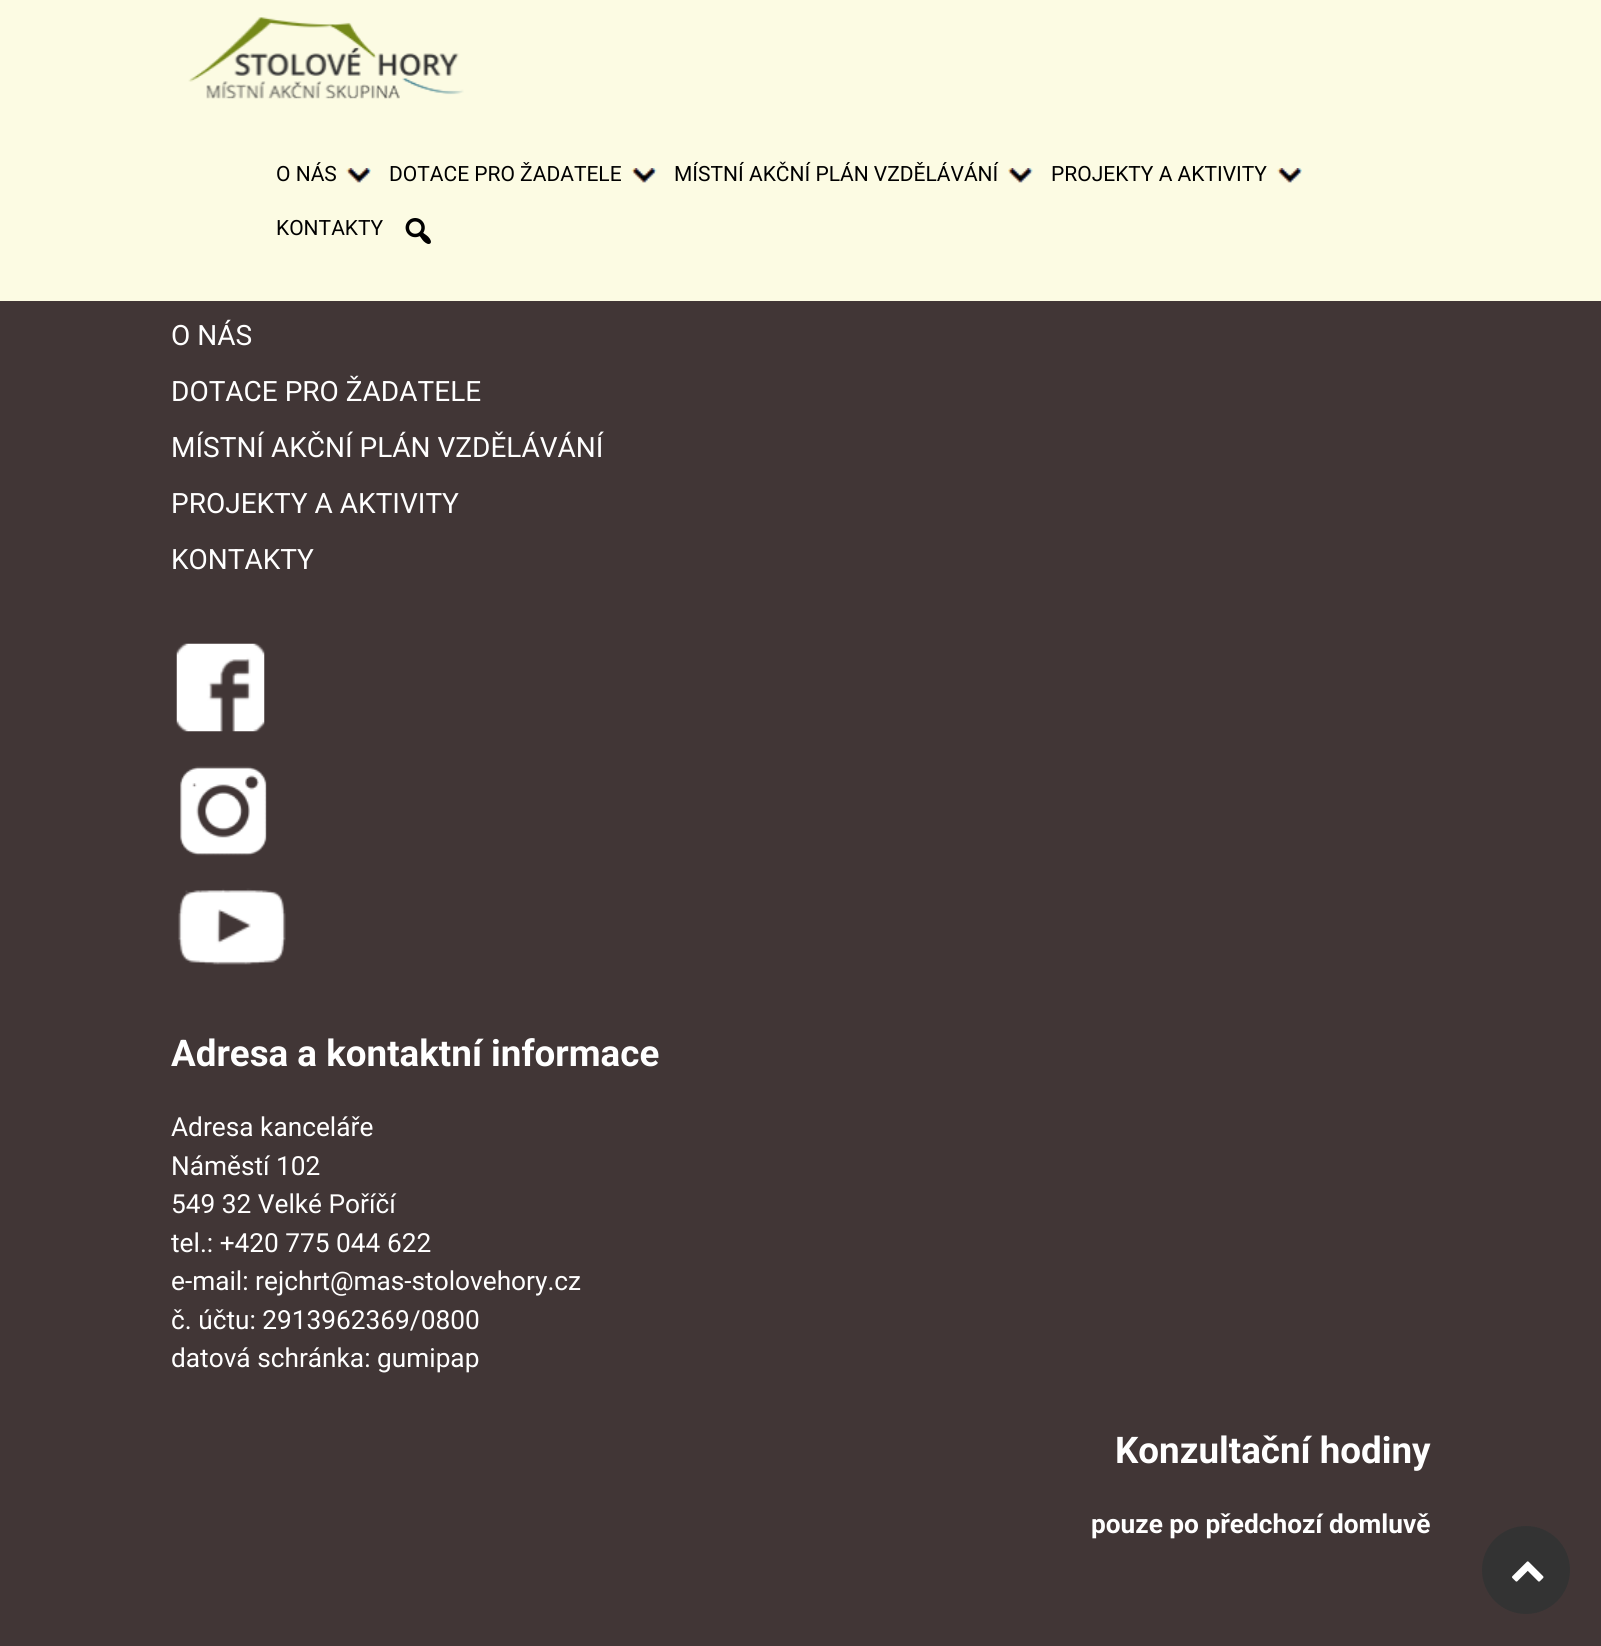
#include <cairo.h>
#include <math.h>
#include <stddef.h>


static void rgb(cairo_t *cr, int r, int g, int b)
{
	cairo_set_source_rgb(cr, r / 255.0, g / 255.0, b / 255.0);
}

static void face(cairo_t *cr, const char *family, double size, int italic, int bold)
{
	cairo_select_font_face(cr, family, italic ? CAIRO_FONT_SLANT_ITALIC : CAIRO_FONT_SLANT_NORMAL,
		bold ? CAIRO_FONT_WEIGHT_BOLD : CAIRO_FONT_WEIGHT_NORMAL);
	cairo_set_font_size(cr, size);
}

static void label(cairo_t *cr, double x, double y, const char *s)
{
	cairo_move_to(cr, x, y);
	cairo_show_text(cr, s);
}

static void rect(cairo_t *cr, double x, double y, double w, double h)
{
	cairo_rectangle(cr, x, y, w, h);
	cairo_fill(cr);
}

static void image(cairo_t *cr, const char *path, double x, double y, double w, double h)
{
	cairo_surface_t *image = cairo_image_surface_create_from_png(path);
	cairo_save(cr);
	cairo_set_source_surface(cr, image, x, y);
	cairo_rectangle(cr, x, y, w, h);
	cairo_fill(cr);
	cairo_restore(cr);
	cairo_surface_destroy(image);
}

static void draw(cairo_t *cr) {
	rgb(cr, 65, 54, 54);
	cairo_paint(cr);
	rgb(cr, 252, 251, 227);
	rect(cr, 0, 0, 1601, 301);
	image(cr, "image0.png", 188, 17, 276, 82);
	image(cr, "image1.png", 346, 168, 25, 15);
	face(cr, "Roboto", 21, 0, 0);
	rgb(cr, 0, 0, 0);
	label(cr, 276, 181, "O NÁS");
	image(cr, "image2.png", 631, 168, 26, 15);
	label(cr, 389, 181, "DOTACE PRO ŽADATELE");
	image(cr, "image3.png", 1008, 168, 25, 15);
	label(cr, 674, 181, "MÍSTNÍ AKČNÍ PLÁN VZDĚLÁVÁNÍ");
	image(cr, "image4.png", 1277, 168, 25, 15);
	label(cr, 1051, 181, "PROJEKTY A AKTIVITY");
	label(cr, 276, 235, "KONTAKTY");
	image(cr, "image5.png", 405, 218, 26, 26);
	face(cr, "Roboto", 28, 0, 0);
	rgb(cr, 255, 255, 255);
	label(cr, 171, 345, "O NÁS");
	label(cr, 171, 401, "DOTACE PRO ŽADATELE");
	label(cr, 171, 457, "MÍSTNÍ AKČNÍ PLÁN VZDĚLÁVÁNÍ");
	label(cr, 171, 513, "PROJEKTY A AKTIVITY");
	label(cr, 171, 569, "KONTAKTY");
	image(cr, "image6.png", 176, 643, 89, 89);
	image(cr, "image7.png", 180, 766, 87, 90);
	image(cr, "image8.png", 178, 888, 108, 77);
	face(cr, "Roboto", 36.75, 0, 1);
	label(cr, 171, 1066, "Adresa a kontaktní informace");
	face(cr, "Roboto", 26.25, 0, 0);
	label(cr, 171, 1136, "Adresa kanceláře");
	label(cr, 171, 1175, "Náměstí 102");
	label(cr, 171, 1213, "549 32 Velké Poříčí");
	label(cr, 171, 1252, "tel.: +420 775 044 622");
	label(cr, 171, 1290, "e-mail: rejchrt@mas-stolovehory.cz");
	label(cr, 171, 1329, "č. účtu: 2913962369/0800");
	label(cr, 171, 1367, "datová schránka: gumipap");
	face(cr, "Roboto", 36.75, 0, 1);
	label(cr, 1115, 1463, "Konzultační hodiny");
	face(cr, "Roboto", 26.25, 0, 1);
	label(cr, 1091, 1533, "pouze po předchozí domluvě");
	rgb(cr, 51, 51, 51);
	cairo_new_path(cr);
	cairo_arc(cr, 1526, 1570, 43, 0, 2 * M_PI);
	cairo_fill_preserve(cr);
	cairo_stroke(cr);
	image(cr, "image9.png", 1512, 1561, 32, 21);
}

int main(void) {
	cairo_surface_t *surface = cairo_image_surface_create(CAIRO_FORMAT_RGB24, 1601, 1646);
	cairo_t *cr = cairo_create(surface);
	cairo_font_options_t *options = cairo_font_options_create();
	cairo_font_options_set_hint_metrics(options, CAIRO_HINT_METRICS_OFF);
	cairo_font_options_set_hint_style(options, CAIRO_HINT_STYLE_NONE);
	cairo_set_font_options(cr, options);
	cairo_set_miter_limit(cr, 4);
	draw(cr);
	cairo_surface_write_to_png(surface, "render.png");
	cairo_font_options_destroy(options);
	cairo_destroy(cr);
	cairo_surface_destroy(surface);
	return 0;
}
